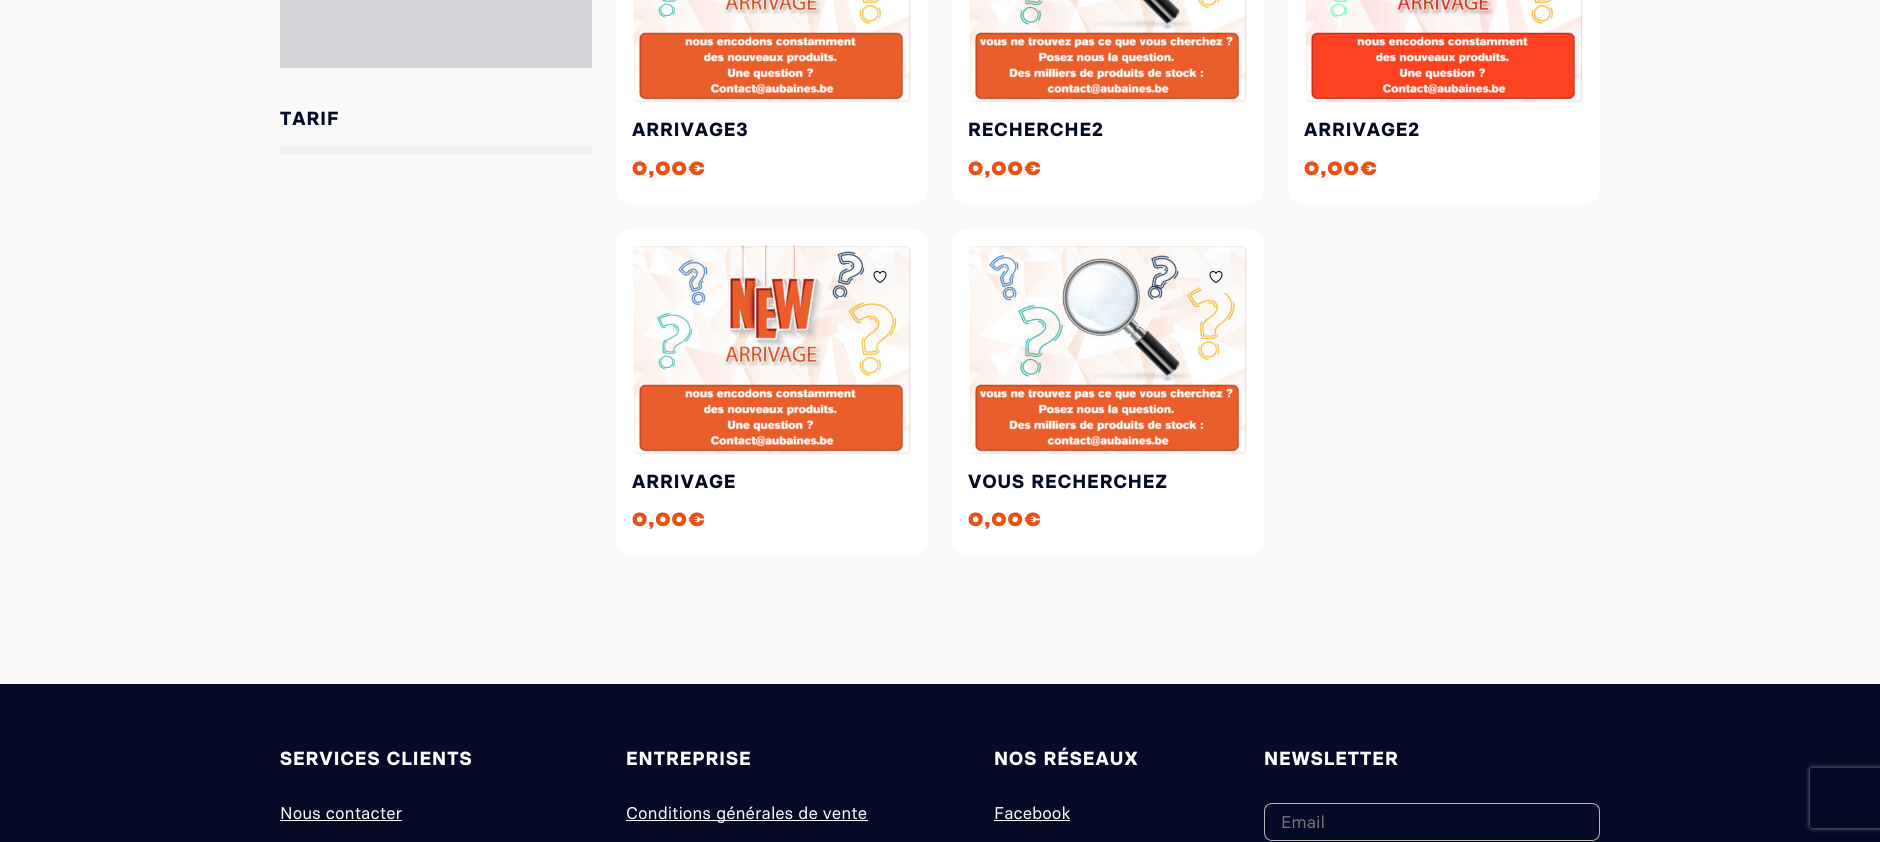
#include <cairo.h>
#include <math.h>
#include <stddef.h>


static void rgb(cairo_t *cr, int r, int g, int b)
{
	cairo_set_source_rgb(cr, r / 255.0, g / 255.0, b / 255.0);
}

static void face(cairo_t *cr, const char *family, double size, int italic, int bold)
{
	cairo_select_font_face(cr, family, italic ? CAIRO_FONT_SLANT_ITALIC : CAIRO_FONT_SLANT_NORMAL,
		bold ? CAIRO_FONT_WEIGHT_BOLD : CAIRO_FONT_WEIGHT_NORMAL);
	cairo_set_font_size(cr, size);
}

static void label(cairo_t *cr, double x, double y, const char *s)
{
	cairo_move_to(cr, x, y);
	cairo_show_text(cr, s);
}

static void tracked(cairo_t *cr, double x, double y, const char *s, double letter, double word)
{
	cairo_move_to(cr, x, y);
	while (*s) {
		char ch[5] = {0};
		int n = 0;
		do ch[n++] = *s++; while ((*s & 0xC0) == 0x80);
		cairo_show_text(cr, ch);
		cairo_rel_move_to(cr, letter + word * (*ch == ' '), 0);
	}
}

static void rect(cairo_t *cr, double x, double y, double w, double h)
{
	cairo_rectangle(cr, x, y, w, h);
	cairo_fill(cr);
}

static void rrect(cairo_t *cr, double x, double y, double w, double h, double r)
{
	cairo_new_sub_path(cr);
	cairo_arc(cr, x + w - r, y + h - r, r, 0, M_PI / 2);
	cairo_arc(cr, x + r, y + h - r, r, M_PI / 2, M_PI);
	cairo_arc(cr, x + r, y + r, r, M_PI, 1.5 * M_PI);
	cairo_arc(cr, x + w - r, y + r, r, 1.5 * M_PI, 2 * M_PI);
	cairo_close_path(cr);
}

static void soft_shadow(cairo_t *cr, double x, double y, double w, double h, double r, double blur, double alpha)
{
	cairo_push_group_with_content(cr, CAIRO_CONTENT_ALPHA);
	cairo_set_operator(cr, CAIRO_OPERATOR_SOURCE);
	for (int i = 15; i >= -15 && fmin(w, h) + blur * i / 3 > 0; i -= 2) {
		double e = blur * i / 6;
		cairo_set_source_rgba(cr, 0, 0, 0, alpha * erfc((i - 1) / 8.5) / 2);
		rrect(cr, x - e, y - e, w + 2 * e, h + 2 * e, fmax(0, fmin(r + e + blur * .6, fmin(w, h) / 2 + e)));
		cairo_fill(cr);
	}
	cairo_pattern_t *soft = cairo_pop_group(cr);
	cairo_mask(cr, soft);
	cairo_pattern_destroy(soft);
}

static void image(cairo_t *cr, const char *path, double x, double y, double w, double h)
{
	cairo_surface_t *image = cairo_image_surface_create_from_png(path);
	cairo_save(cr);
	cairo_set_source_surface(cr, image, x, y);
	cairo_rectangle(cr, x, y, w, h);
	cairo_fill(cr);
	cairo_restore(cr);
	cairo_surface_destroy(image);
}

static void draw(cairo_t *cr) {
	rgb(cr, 249, 249, 249);
	cairo_paint(cr);
	rgb(cr, 212, 213, 217);
	rect(cr, 280, 0, 312, 68);
	face(cr, "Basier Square", 19, 0, 1);
	rgb(cr, 5, 10, 38);
	tracked(cr, 280, 125, "TARIF", 1, 0);
	rgb(cr, 242, 242, 243);
	rect(cr, 280, 145, 312, 10);
	rgb(cr, 255, 255, 255);
	rrect(cr, 616, -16, 312, 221, 16);
	cairo_fill(cr);
	image(cr, "image0.png", 632, 0, 280, 103);
	rgb(cr, 5, 10, 38);
	tracked(cr, 632, 136, "ARRIVAGE3", 1, 0);
	face(cr, "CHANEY", 19, 0, 0);
	rgb(cr, 232, 81, 21);
	tracked(cr, 632, 175, "0,00€", 1, 0);
	rgb(cr, 255, 255, 255);
	rrect(cr, 952, -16, 312, 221, 16);
	cairo_fill(cr);
	image(cr, "image1.png", 968, 0, 280, 103);
	face(cr, "Basier Square", 19, 0, 1);
	rgb(cr, 5, 10, 38);
	tracked(cr, 968, 136, "RECHERCHE2", 1, 0);
	face(cr, "CHANEY", 19, 0, 0);
	rgb(cr, 232, 81, 21);
	tracked(cr, 968, 175, "0,00€", 1, 0);
	rgb(cr, 255, 255, 255);
	rrect(cr, 1288, -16, 312, 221, 16);
	cairo_fill(cr);
	image(cr, "image2.png", 1304, 0, 280, 103);
	face(cr, "Basier Square", 19, 0, 1);
	rgb(cr, 5, 10, 38);
	tracked(cr, 1304, 136, "ARRIVAGE2", 1, 0);
	face(cr, "CHANEY", 19, 0, 0);
	rgb(cr, 232, 81, 21);
	tracked(cr, 1304, 175, "0,00€", 1, 0);
	rgb(cr, 255, 255, 255);
	rrect(cr, 616, 229, 312, 327, 16);
	cairo_fill(cr);
	image(cr, "image4.png", 632, 245, 280, 210);
	rgb(cr, 249, 249, 249);
	rrect(cr, 864, 261, 32, 32, 8);
	cairo_fill(cr);
	image(cr, "image3.png", 873, 271, 14, 12);
	face(cr, "Basier Square", 19, 0, 1);
	rgb(cr, 5, 10, 38);
	tracked(cr, 632, 488, "ARRIVAGE", 1, 0);
	face(cr, "CHANEY", 19, 0, 0);
	rgb(cr, 232, 81, 21);
	tracked(cr, 632, 526, "0,00€", 1, 0);
	rgb(cr, 255, 255, 255);
	rrect(cr, 952, 229, 312, 327, 16);
	cairo_fill(cr);
	image(cr, "image5.png", 968, 245, 280, 210);
	rgb(cr, 249, 249, 249);
	rrect(cr, 1200, 261, 32, 32, 8);
	cairo_fill(cr);
	image(cr, "image3.png", 1209, 271, 14, 12);
	face(cr, "Basier Square", 19, 0, 1);
	rgb(cr, 5, 10, 38);
	tracked(cr, 968, 488, "VOUS RECHERCHEZ", 1, 0);
	face(cr, "CHANEY", 19, 0, 0);
	rgb(cr, 232, 81, 21);
	tracked(cr, 968, 526, "0,00€", 1, 0);
	rgb(cr, 5, 10, 38);
	rect(cr, 0, 684, 1880, 158);
	face(cr, "Basier Square", 19, 0, 1);
	rgb(cr, 252, 252, 253);
	tracked(cr, 280, 765, "SERVICES CLIENTS", 1, 0);
	face(cr, "Basier Square", 17, 0, 0);
	label(cr, 280, 819, "Nous contacter");
	rect(cr, 280, 820, 122, 1);
	face(cr, "Basier Square", 19, 0, 1);
	tracked(cr, 626, 765, "ENTREPRISE", 1, 0);
	rect(cr, 626, 820, 242, 1);
	face(cr, "Basier Square", 17, 0, 0);
	label(cr, 626, 819, "Conditions générales de vente");
	face(cr, "Basier Square", 19, 0, 1);
	tracked(cr, 994, 765, "NOS RÉSEAUX", 1, 0);
	face(cr, "Basier Square", 17, 0, 0);
	label(cr, 994, 819, "Facebook");
	rect(cr, 994, 820, 76, 1);
	face(cr, "Basier Square", 19, 0, 1);
	tracked(cr, 1264, 765, "NEWSLETTER", 1, 0);
	rrect(cr, 1264.5, 803.5, 335, 37, 7.5);
	rgb(cr, 183, 183, 183);
	cairo_set_line_width(cr, 1);
	cairo_stroke(cr);
	face(cr, "Basier Square", 17, 0, 0);
	rgb(cr, 117, 117, 117);
	label(cr, 1281, 828, "Email");
	cairo_save(cr);
	cairo_set_fill_rule(cr, CAIRO_FILL_RULE_EVEN_ODD);
	cairo_new_path(cr);
	cairo_move_to(cr, 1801, 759);
	cairo_line_to(cr, 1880, 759);
	cairo_line_to(cr, 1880, 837);
	cairo_line_to(cr, 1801, 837);
	cairo_close_path(cr);
	cairo_move_to(cr, 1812, 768);
	cairo_line_to(cr, 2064, 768);
	cairo_curve_to(cr, 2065, 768, 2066, 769, 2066, 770);
	cairo_line_to(cr, 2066, 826);
	cairo_curve_to(cr, 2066, 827, 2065, 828, 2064, 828);
	cairo_line_to(cr, 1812, 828);
	cairo_curve_to(cr, 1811, 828, 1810, 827, 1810, 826);
	cairo_line_to(cr, 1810, 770);
	cairo_curve_to(cr, 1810, 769, 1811, 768, 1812, 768);
	cairo_close_path(cr);
	cairo_clip(cr);
	rgb(cr, 128, 128, 128);
	soft_shadow(cr, 1810, 768, 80, 60, 2, 2.5, 1);
	cairo_restore(cr);
}

int main(void) {
	cairo_surface_t *surface = cairo_image_surface_create(CAIRO_FORMAT_RGB24, 1880, 842);
	cairo_t *cr = cairo_create(surface);
	cairo_font_options_t *options = cairo_font_options_create();
	cairo_font_options_set_hint_metrics(options, CAIRO_HINT_METRICS_OFF);
	cairo_font_options_set_hint_style(options, CAIRO_HINT_STYLE_NONE);
	cairo_set_font_options(cr, options);
	cairo_set_miter_limit(cr, 4);
	draw(cr);
	cairo_surface_write_to_png(surface, "render.png");
	cairo_font_options_destroy(options);
	cairo_destroy(cr);
	cairo_surface_destroy(surface);
	return 0;
}
